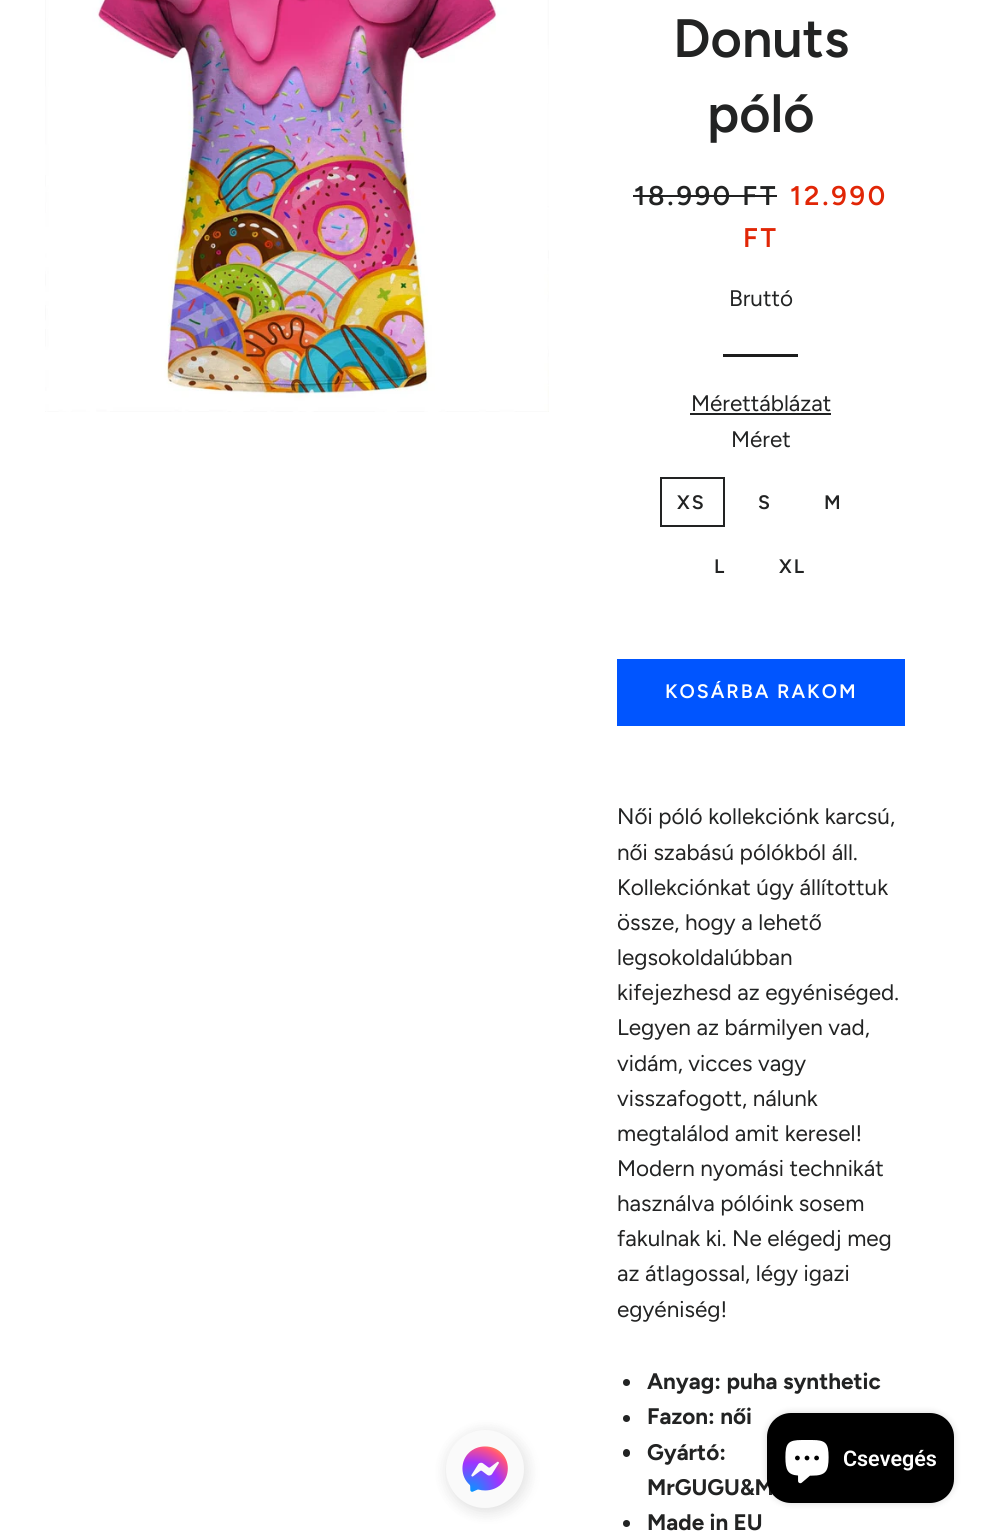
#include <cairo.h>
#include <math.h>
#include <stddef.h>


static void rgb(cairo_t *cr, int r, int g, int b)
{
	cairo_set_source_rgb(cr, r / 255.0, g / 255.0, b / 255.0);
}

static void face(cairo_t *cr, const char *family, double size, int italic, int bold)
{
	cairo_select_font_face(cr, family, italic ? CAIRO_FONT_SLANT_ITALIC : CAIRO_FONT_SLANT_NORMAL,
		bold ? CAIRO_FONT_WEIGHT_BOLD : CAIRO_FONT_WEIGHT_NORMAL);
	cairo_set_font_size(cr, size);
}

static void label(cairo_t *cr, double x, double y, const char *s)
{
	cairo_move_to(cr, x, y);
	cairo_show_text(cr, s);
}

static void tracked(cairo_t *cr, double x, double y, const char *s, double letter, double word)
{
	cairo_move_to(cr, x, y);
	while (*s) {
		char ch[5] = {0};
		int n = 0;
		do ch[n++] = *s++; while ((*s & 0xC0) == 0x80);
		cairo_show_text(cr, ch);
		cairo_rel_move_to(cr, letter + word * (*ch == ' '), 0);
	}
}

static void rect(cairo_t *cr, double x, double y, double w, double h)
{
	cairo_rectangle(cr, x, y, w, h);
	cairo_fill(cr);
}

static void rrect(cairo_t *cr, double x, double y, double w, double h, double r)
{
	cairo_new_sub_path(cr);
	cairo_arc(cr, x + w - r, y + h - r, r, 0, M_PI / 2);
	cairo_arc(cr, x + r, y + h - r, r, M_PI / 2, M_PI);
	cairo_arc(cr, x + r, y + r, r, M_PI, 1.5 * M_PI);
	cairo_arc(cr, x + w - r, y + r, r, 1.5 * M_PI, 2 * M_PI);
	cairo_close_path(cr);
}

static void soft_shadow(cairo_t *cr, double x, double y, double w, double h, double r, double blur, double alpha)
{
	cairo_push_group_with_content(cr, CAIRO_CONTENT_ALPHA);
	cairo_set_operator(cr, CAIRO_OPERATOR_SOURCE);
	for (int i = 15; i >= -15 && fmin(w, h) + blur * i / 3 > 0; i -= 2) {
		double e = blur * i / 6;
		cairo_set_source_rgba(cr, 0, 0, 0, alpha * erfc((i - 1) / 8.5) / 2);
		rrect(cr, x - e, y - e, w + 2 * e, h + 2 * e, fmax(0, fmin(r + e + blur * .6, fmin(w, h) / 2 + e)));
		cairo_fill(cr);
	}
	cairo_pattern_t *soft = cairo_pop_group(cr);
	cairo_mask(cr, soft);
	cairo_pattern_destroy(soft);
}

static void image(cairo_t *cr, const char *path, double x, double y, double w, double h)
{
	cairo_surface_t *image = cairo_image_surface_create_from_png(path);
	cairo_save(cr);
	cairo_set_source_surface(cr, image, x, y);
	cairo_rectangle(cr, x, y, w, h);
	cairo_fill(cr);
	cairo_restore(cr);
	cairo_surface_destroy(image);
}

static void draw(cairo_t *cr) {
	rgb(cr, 255, 255, 255);
	cairo_paint(cr);
	rgb(cr, 0, 0, 0);
	soft_shadow(cr, 446, 1430, 84, 84, 42, 7, 0.07);
	soft_shadow(cr, 446, 1433, 78, 78, 39, 7.5, 0.05);
	image(cr, "image0.png", 446, 1430, 78, 78);
	image(cr, "image1.png", 45, 0, 504, 412);
	face(cr, "Figtree SemiBold", 54, 0, 0);
	rgb(cr, 34, 35, 35);
	label(cr, 673, 57, "Donuts");
	label(cr, 707, 132, "póló");
	face(cr, "Figtree SemiBold", 27, 0, 0);
	tracked(cr, 634, 205, "18.990 FT", 2.75, 0);
	rect(cr, 633, 195, 144, 2);
	rgb(cr, 225, 38, 6);
	tracked(cr, 790, 205, "12.990", 2.75, 0);
	tracked(cr, 743, 247, "FT", 2.75, 0);
	face(cr, "Figtree", 22.5, 0, 0);
	rgb(cr, 34, 35, 35);
	label(cr, 729, 306, "Bruttó");
	rgb(cr, 28, 29, 29);
	rect(cr, 723, 354, 75, 3);
	rgb(cr, 34, 35, 35);
	label(cr, 691, 411, "Mérettáblázat");
	rect(cr, 690, 413, 141, 2);
	label(cr, 731, 447, "Méret");
	cairo_rectangle(cr, 661, 478, 63, 48);
	cairo_stroke(cr);
	face(cr, "Figtree SemiBold", 19.5, 0, 0);
	tracked(cr, 677, 509, "XS", 2, 0);
	tracked(cr, 758, 509, "S", 2, 0);
	tracked(cr, 824, 509, "M", 2, 0);
	tracked(cr, 714, 573, "L", 2, 0);
	tracked(cr, 779, 573, "XL", 2, 0);
	rgb(cr, 0, 85, 255);
	rect(cr, 617, 659, 288, 67);
	rgb(cr, 255, 255, 255);
	tracked(cr, 665, 698, "KOSÁRBA RAKOM", 2, 0);
	face(cr, "Figtree", 22.5, 0, 0);
	rgb(cr, 34, 35, 35);
	label(cr, 617, 824, "Női póló kollekciónk karcsú,");
	label(cr, 617, 860, "női szabású pólókból áll.");
	label(cr, 617, 895, "Kollekciónkat úgy állítottuk");
	label(cr, 617, 930, "össze, hogy a lehető");
	label(cr, 617, 965, "legsokoldalúbban");
	label(cr, 617, 1000, "kifejezhesd az egyéniséged.");
	label(cr, 617, 1035, "Legyen az bármilyen vad,");
	label(cr, 617, 1071, "vidám, vicces vagy");
	label(cr, 617, 1106, "visszafogott, nálunk");
	label(cr, 617, 1141, "megtalálod amit keresel!");
	label(cr, 617, 1176, "Modern nyomási technikát");
	label(cr, 617, 1211, "használva pólóink sosem");
	label(cr, 617, 1246, "fakulnak ki. Ne elégedj meg");
	label(cr, 617, 1281, "az átlagossal, légy igazi");
	label(cr, 617, 1317, "egyéniség!");
	cairo_new_path(cr);
	cairo_arc(cr, 626.5, 1382.5, 3.5, 0, 2 * M_PI);
	cairo_fill(cr);
	face(cr, "Figtree", 22.5, 0, 1);
	label(cr, 647, 1389, "Anyag: puha synthetic");
	cairo_new_path(cr);
	cairo_arc(cr, 626.5, 1418.5, 3.5, 0, 2 * M_PI);
	cairo_fill(cr);
	label(cr, 647, 1424, "Fazon: női");
	rrect(cr, 623, 1449, 7, 8, 3.5);
	cairo_fill(cr);
	label(cr, 647, 1460, "Gyártó:");
	label(cr, 647, 1495, "MrGUGU&M");
	cairo_new_path(cr);
	cairo_arc(cr, 626.5, 1523.5, 3.5, 0, 2 * M_PI);
	cairo_fill(cr);
	label(cr, 647, 1530, "Made in EU");
	rgb(cr, 0, 0, 0);
	soft_shadow(cr, 767, 1413, 187, 90, 24, 4, 0.15);
	rgb(cr, 0, 0, 0);
	rrect(cr, 767, 1413, 187, 90, 24);
	cairo_fill(cr);
	image(cr, "image2.png", 785, 1440, 44, 44);
	face(cr, "Roboto SemiBold", 21.5, 0, 0);
	rgb(cr, 255, 255, 255);
	label(cr, 843, 1466, "Csevegés");
}

int main(void) {
	cairo_surface_t *surface = cairo_image_surface_create(CAIRO_FORMAT_RGB24, 986, 1534);
	cairo_t *cr = cairo_create(surface);
	cairo_font_options_t *options = cairo_font_options_create();
	cairo_font_options_set_hint_metrics(options, CAIRO_HINT_METRICS_OFF);
	cairo_font_options_set_hint_style(options, CAIRO_HINT_STYLE_NONE);
	cairo_set_font_options(cr, options);
	cairo_set_miter_limit(cr, 4);
	draw(cr);
	cairo_surface_write_to_png(surface, "render.png");
	cairo_font_options_destroy(options);
	cairo_destroy(cr);
	cairo_surface_destroy(surface);
	return 0;
}
